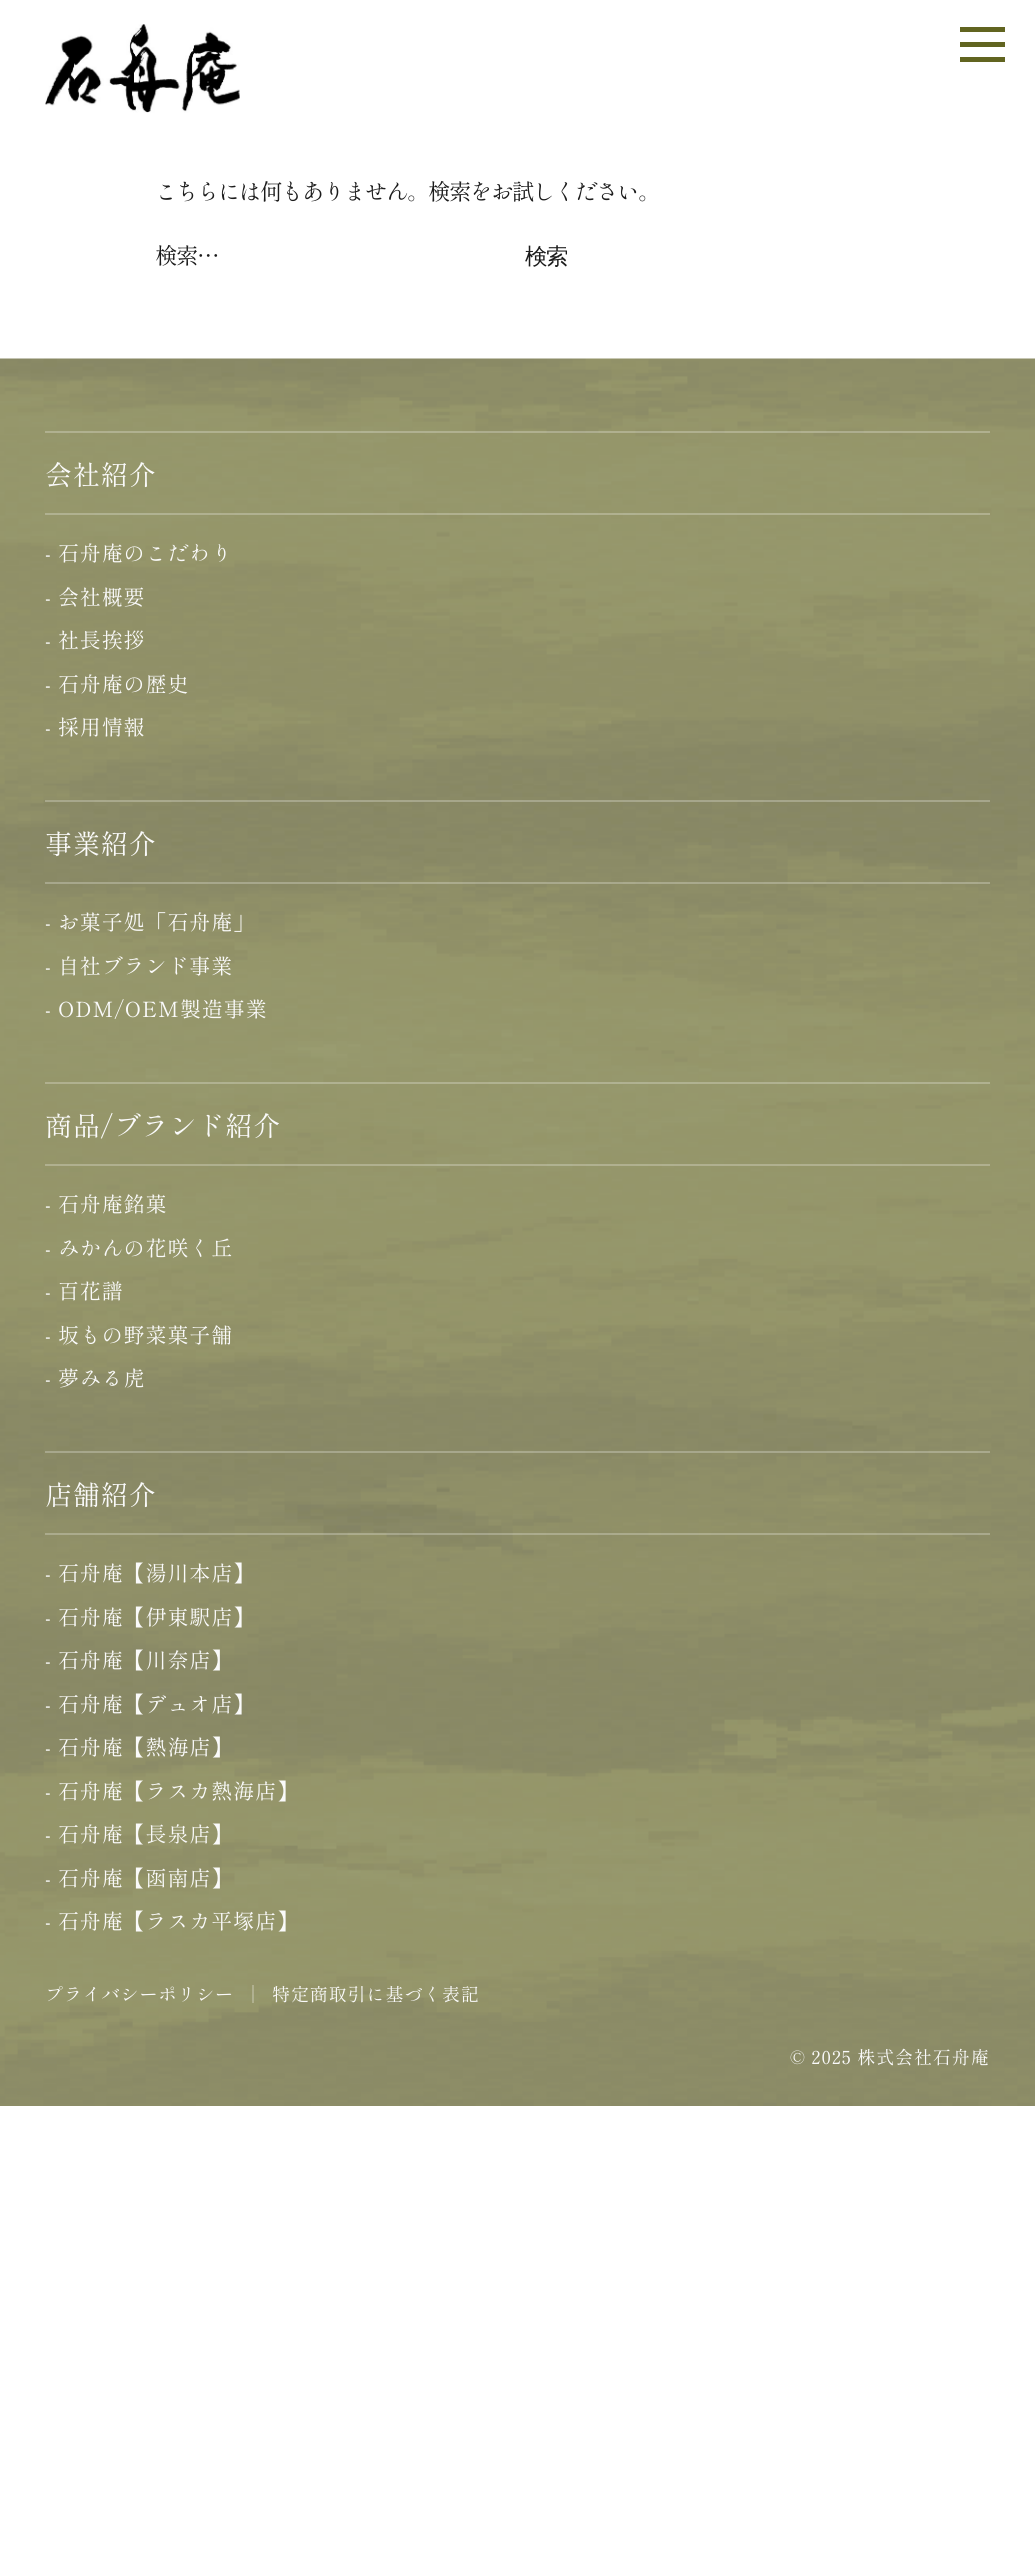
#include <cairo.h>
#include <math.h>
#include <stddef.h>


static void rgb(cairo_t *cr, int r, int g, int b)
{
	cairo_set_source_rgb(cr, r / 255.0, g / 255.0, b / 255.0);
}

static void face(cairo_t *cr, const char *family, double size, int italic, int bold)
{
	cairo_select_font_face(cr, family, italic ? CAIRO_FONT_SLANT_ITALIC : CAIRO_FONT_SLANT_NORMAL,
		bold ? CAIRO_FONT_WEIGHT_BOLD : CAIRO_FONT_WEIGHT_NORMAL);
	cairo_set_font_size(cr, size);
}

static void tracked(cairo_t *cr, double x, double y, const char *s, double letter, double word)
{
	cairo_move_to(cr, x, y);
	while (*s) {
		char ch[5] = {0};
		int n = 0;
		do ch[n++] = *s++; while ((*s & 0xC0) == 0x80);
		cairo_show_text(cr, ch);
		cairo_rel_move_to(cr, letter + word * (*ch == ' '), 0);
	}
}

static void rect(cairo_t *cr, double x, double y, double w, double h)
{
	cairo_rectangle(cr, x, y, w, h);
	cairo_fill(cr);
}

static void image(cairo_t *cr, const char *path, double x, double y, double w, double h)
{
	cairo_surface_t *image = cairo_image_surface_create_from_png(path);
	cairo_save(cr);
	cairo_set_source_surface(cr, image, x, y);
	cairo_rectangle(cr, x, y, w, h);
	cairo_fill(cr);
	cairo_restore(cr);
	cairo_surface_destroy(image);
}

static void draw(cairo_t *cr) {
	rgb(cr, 255, 255, 255);
	cairo_paint(cr);
	image(cr, "image0.png", 45, 24, 195, 89);
	rgb(cr, 97, 100, 32);
	rect(cr, 960, 42, 45, 5);
	rect(cr, 960, 27, 45, 5);
	rect(cr, 960, 57, 45, 5);
	face(cr, "Shippori Mincho", 22.5, 0, 0);
	rgb(cr, 28, 28, 28);
	tracked(cr, 155, 200, "こちらには何もありません。検索をお試しください。", -1.5, 0);
	tracked(cr, 155, 264, "検索…", -1.5, 0);
	cairo_save(cr);
	cairo_rectangle(cr, 525, 245, 42, 22);
	cairo_clip(cr);
	face(cr, "WenQuanYi Zen Hei Medium", 22.5, 0, 0);
	tracked(cr, 525, 264, "検索", -1.5, 0);
	cairo_restore(cr);
	image(cr, "image1.png", 0, 358, 1035, 1748);
	cairo_set_source_rgba(cr, 1, 1, 1, 0.25);
	rect(cr, 45, 431, 945, 2);
	rect(cr, 45, 513, 945, 2);
	face(cr, "Shippori Mincho", 27, 0, 0);
	rgb(cr, 250, 250, 250);
	tracked(cr, 45, 485, "会社紹介", 0.9, 0);
	face(cr, "Shippori Mincho", 21, 0, 0);
	tracked(cr, 45, 561, "- 石舟庵のこだわり", 0.9, 0);
	tracked(cr, 45, 605, "- 会社概要", 0.9, 0);
	tracked(cr, 45, 648, "- 社長挨拶", 0.9, 0);
	tracked(cr, 45, 692, "- 石舟庵の歴史", 0.9, 0);
	tracked(cr, 45, 735, "- 採用情報", 0.9, 0);
	cairo_set_source_rgba(cr, 1, 1, 1, 0.25);
	rect(cr, 45, 800, 945, 2);
	rect(cr, 45, 882, 945, 2);
	face(cr, "Shippori Mincho", 27, 0, 0);
	rgb(cr, 250, 250, 250);
	tracked(cr, 45, 854, "事業紹介", 0.9, 0);
	face(cr, "Shippori Mincho", 21, 0, 0);
	tracked(cr, 45, 930, "- お菓子処「石舟庵」", 0.9, 0);
	tracked(cr, 45, 974, "- 自社ブランド事業", 0.9, 0);
	tracked(cr, 45, 1017, "- ODM/OEM製造事業", 0.9, 0);
	cairo_set_source_rgba(cr, 1, 1, 1, 0.25);
	rect(cr, 45, 1082, 945, 2);
	rect(cr, 45, 1164, 945, 2);
	face(cr, "Shippori Mincho", 27, 0, 0);
	rgb(cr, 250, 250, 250);
	tracked(cr, 45, 1136, "商品/ブランド紹介", 0.9, 0);
	face(cr, "Shippori Mincho", 21, 0, 0);
	tracked(cr, 45, 1212, "- 石舟庵銘菓", 0.9, 0);
	tracked(cr, 45, 1256, "- みかんの花咲く丘", 0.9, 0);
	tracked(cr, 45, 1299, "- 百花譜", 0.9, 0);
	tracked(cr, 45, 1343, "- 坂もの野菜菓子舗", 0.9, 0);
	tracked(cr, 45, 1386, "- 夢みる虎", 0.9, 0);
	cairo_set_source_rgba(cr, 1, 1, 1, 0.25);
	rect(cr, 45, 1451, 945, 2);
	rect(cr, 45, 1533, 945, 2);
	face(cr, "Shippori Mincho", 27, 0, 0);
	rgb(cr, 250, 250, 250);
	tracked(cr, 45, 1505, "店舗紹介", 0.9, 0);
	face(cr, "Shippori Mincho", 21, 0, 0);
	tracked(cr, 45, 1581, "- 石舟庵【湯川本店】", 0.9, 0);
	tracked(cr, 45, 1625, "- 石舟庵【伊東駅店】", 0.9, 0);
	tracked(cr, 45, 1668, "- 石舟庵【川奈店】", 0.9, 0);
	tracked(cr, 45, 1712, "- 石舟庵【デュオ店】", 0.9, 0);
	tracked(cr, 45, 1755, "- 石舟庵【熱海店】", 0.9, 0);
	tracked(cr, 45, 1799, "- 石舟庵【ラスカ熱海店】", 0.9, 0);
	tracked(cr, 45, 1842, "- 石舟庵【長泉店】", 0.9, 0);
	tracked(cr, 45, 1886, "- 石舟庵【函南店】", 0.9, 0);
	tracked(cr, 45, 1929, "- 石舟庵【ラスカ平塚店】", 0.9, 0);
	cairo_set_source_rgba(cr, 1, 1, 1, 0.25);
	rect(cr, 252, 1985, 2, 18);
	face(cr, "Shippori Mincho", 18, 0, 0);
	rgb(cr, 250, 250, 250);
	tracked(cr, 45, 2001, "プライバシーポリシー", 0.9, 0);
	tracked(cr, 272, 2001, "特定商取引に基づく表記", 0.9, 0);
	tracked(cr, 790, 2064, "© 2025 株式会社石舟庵", 0.9, 0);
}

int main(void) {
	cairo_surface_t *surface = cairo_image_surface_create(CAIRO_FORMAT_RGB24, 1035, 2576);
	cairo_t *cr = cairo_create(surface);
	cairo_font_options_t *options = cairo_font_options_create();
	cairo_font_options_set_hint_metrics(options, CAIRO_HINT_METRICS_OFF);
	cairo_font_options_set_hint_style(options, CAIRO_HINT_STYLE_NONE);
	cairo_set_font_options(cr, options);
	cairo_set_miter_limit(cr, 4);
	draw(cr);
	cairo_surface_write_to_png(surface, "render.png");
	cairo_font_options_destroy(options);
	cairo_destroy(cr);
	cairo_surface_destroy(surface);
	return 0;
}
